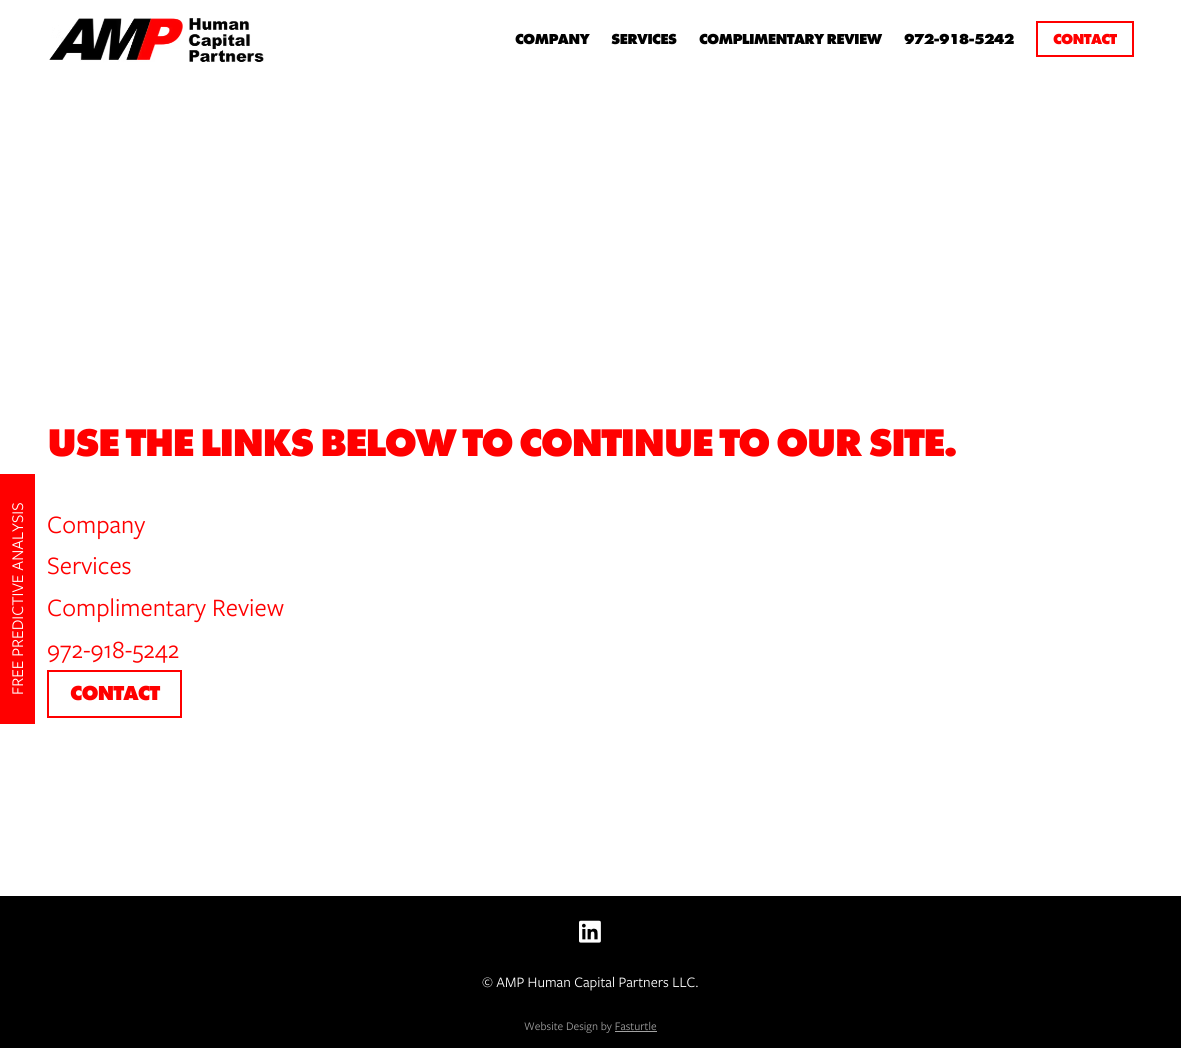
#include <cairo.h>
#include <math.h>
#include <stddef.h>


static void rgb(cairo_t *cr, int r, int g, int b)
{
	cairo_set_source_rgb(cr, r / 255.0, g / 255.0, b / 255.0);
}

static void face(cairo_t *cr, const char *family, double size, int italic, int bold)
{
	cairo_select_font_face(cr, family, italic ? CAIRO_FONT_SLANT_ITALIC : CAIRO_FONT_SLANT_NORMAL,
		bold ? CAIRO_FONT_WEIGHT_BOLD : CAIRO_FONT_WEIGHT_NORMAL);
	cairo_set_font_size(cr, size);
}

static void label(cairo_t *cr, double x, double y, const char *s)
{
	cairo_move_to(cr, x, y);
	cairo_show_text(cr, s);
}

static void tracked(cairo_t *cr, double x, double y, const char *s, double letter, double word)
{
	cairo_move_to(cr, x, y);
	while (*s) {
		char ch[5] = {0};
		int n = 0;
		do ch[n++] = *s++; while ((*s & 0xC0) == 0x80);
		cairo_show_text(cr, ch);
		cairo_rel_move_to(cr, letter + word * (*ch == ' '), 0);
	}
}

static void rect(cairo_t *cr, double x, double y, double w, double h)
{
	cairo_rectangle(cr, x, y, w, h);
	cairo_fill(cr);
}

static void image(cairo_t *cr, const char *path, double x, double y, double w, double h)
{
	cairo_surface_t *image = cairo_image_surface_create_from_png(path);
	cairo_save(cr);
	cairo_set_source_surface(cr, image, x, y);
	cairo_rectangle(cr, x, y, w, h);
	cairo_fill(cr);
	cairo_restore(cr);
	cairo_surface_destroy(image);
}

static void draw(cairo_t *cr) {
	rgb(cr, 255, 255, 255);
	cairo_paint(cr);
	rgb(cr, 255, 0, 0);
	rect(cr, 0, 474, 35, 250);
	face(cr, "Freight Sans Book", 17, 0, 0);
	rgb(cr, 255, 255, 255);
	cairo_save(cr);
	cairo_translate(cr, 23, 695);
	cairo_rotate(cr, -90 * M_PI / 180);
	label(cr, 0, 0, "FREE PREDICTIVE ANALYSIS");
	cairo_restore(cr);
	image(cr, "image0.png", 49, 18, 215, 45);
	face(cr, "Futura PT ExtraBold", 15, 0, 0);
	rgb(cr, 0, 0, 0);
	tracked(cr, 515, 44, "COMPANY", -0.75, 0);
	tracked(cr, 611, 44, "SERVICES", -0.75, 0);
	tracked(cr, 699, 44, "COMPLIMENTARY REVIEW", -0.75, 0);
	tracked(cr, 904, 44, "972-918-5242", -0.75, 0);
	cairo_rectangle(cr, 1037, 22, 96, 34);
	rgb(cr, 255, 0, 0);
	cairo_stroke(cr);
	tracked(cr, 1053, 44, "CONTACT", -0.75, 0);
	face(cr, "Futura PT ExtraBold", 40, 0, 0);
	tracked(cr, 47, 456, "USE THE LINKS BELOW TO CONTINUE TO OUR SITE.", -2, 0);
	face(cr, "Freight Sans Book", 26, 0, 0);
	label(cr, 47, 533, "Company");
	label(cr, 47, 574, "Services");
	label(cr, 47, 616, "Complimentary Review");
	label(cr, 47, 658, "972-918-5242");
	cairo_rectangle(cr, 48, 671, 133, 46);
	cairo_stroke(cr);
	face(cr, "Futura PT ExtraBold", 21, 0, 0);
	tracked(cr, 70, 700, "CONTACT", -1, 0);
	rgb(cr, 0, 0, 0);
	rect(cr, 0, 896, 1181, 152);
	image(cr, "image1.png", 579, 920, 22, 23);
	face(cr, "Freight Sans Book", 15, 0, 0);
	rgb(cr, 255, 255, 255);
	label(cr, 482, 987, "© AMP Human Capital Partners LLC.");
	face(cr, "Freight Sans Book", 12, 0, 0);
	rgb(cr, 162, 162, 162);
	label(cr, 524, 1030, "Website Design by Fasturtle");
	rect(cr, 615, 1031, 42, 1);
}

int main(void) {
	cairo_surface_t *surface = cairo_image_surface_create(CAIRO_FORMAT_RGB24, 1181, 1048);
	cairo_t *cr = cairo_create(surface);
	cairo_font_options_t *options = cairo_font_options_create();
	cairo_font_options_set_hint_metrics(options, CAIRO_HINT_METRICS_OFF);
	cairo_font_options_set_hint_style(options, CAIRO_HINT_STYLE_NONE);
	cairo_set_font_options(cr, options);
	cairo_set_miter_limit(cr, 4);
	draw(cr);
	cairo_surface_write_to_png(surface, "render.png");
	cairo_font_options_destroy(options);
	cairo_destroy(cr);
	cairo_surface_destroy(surface);
	return 0;
}
